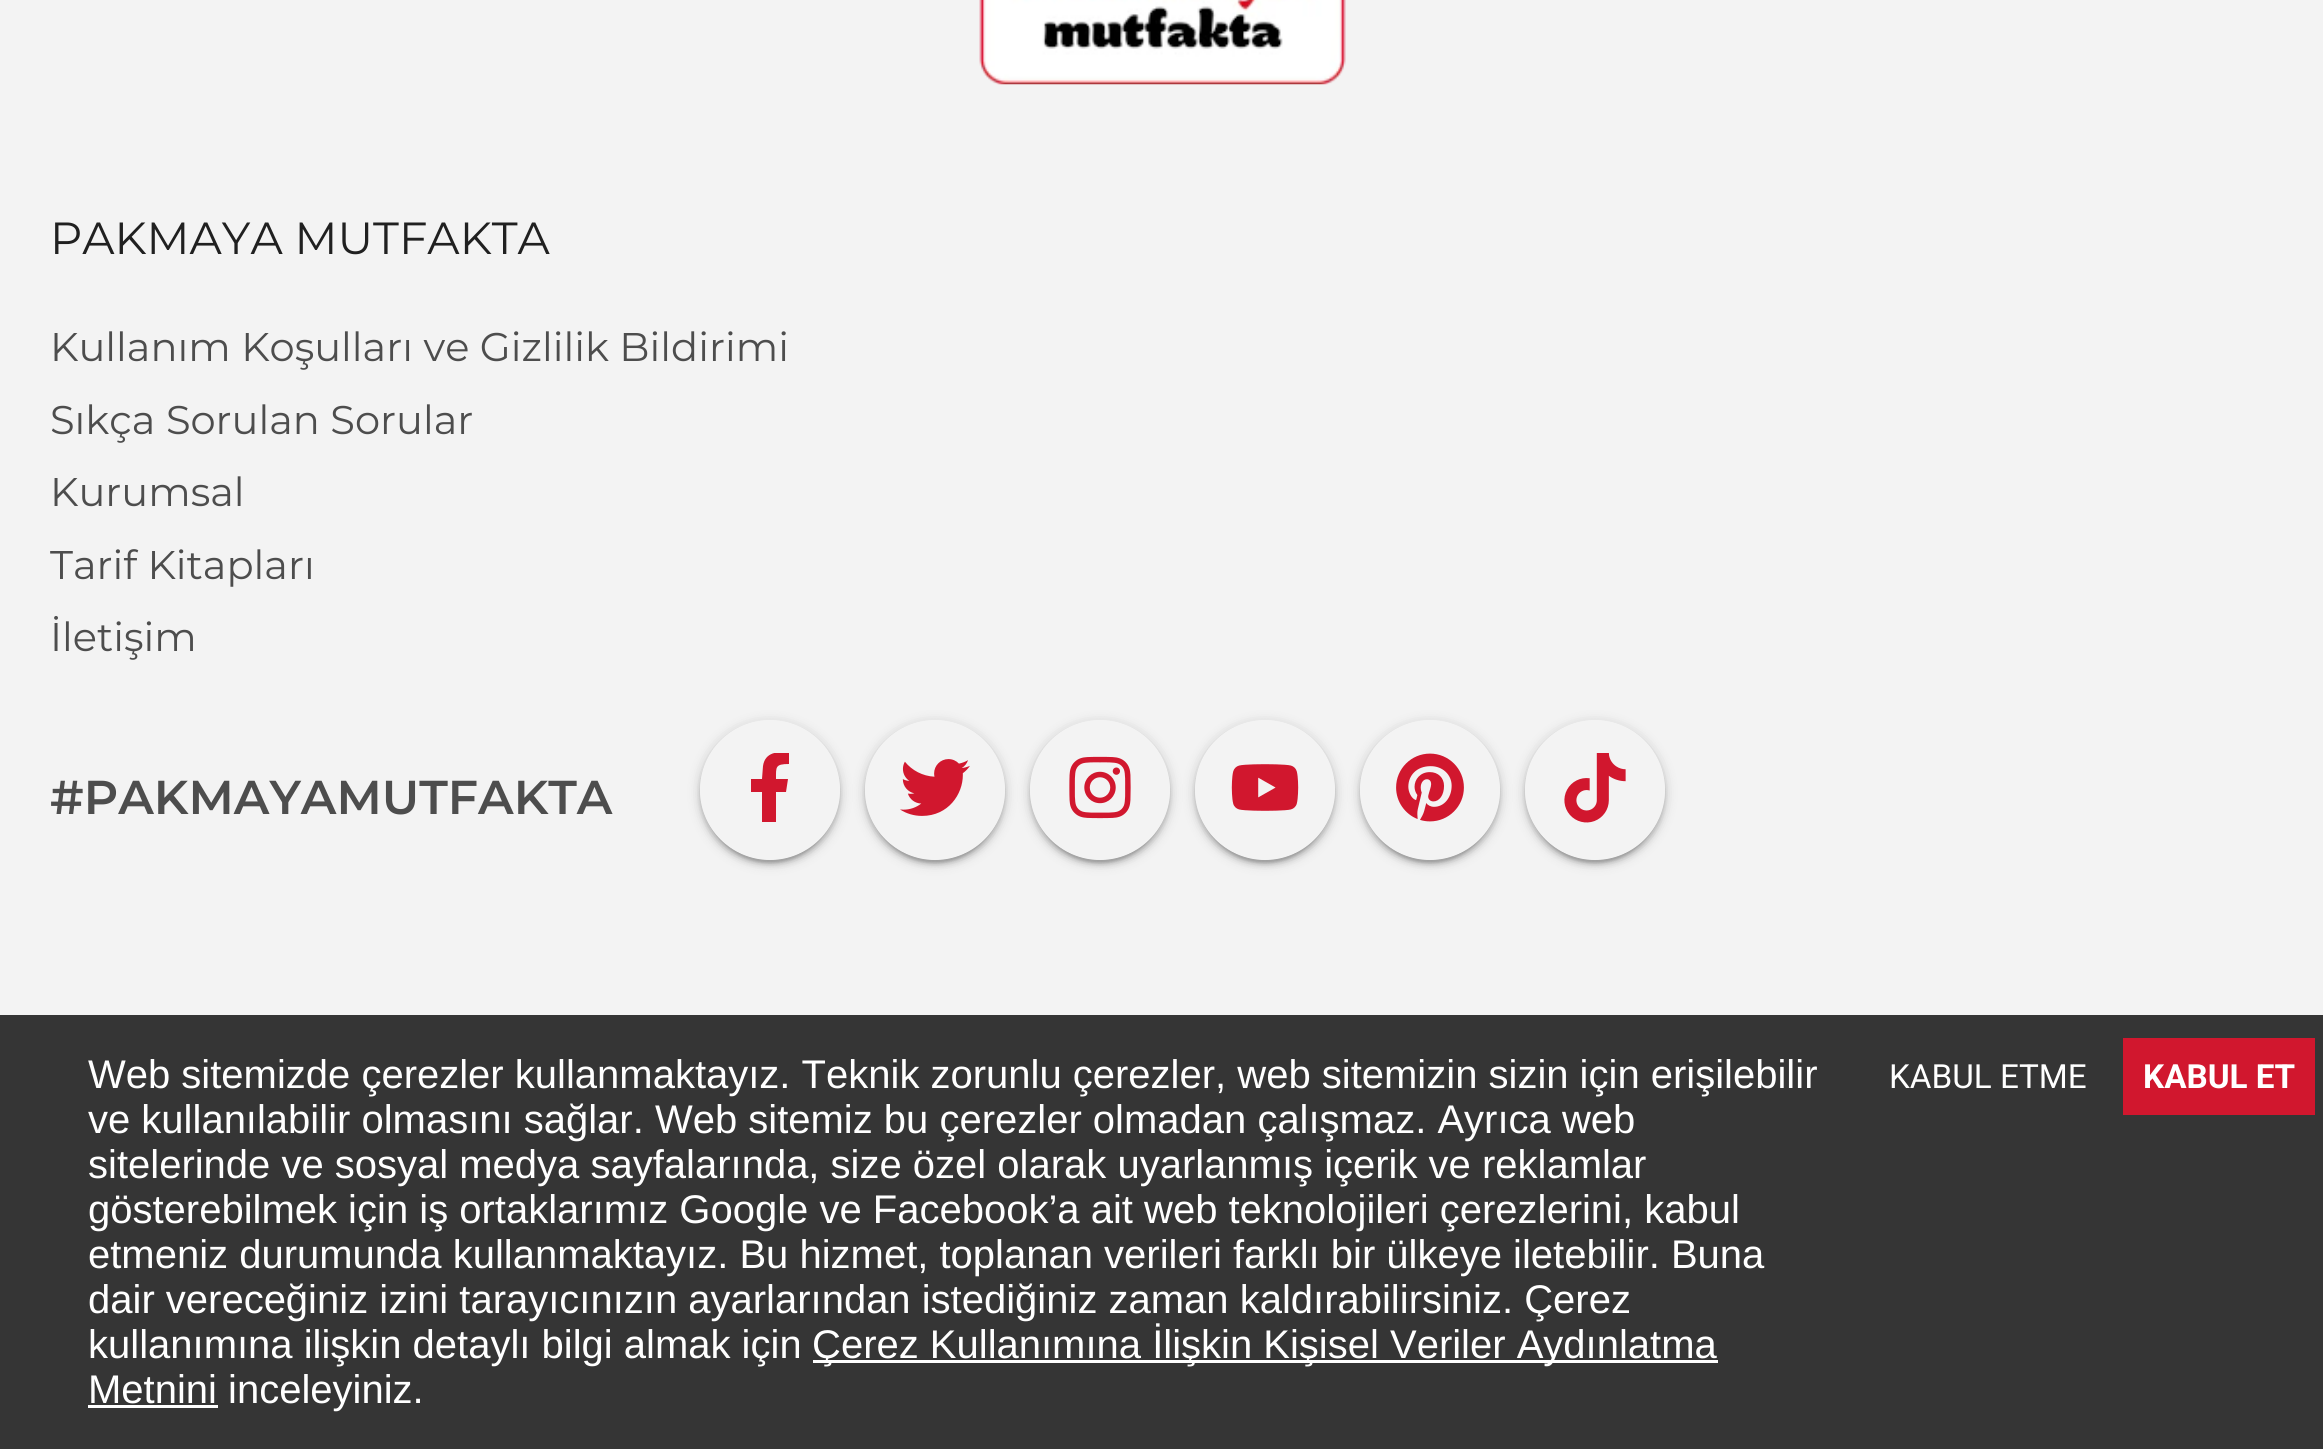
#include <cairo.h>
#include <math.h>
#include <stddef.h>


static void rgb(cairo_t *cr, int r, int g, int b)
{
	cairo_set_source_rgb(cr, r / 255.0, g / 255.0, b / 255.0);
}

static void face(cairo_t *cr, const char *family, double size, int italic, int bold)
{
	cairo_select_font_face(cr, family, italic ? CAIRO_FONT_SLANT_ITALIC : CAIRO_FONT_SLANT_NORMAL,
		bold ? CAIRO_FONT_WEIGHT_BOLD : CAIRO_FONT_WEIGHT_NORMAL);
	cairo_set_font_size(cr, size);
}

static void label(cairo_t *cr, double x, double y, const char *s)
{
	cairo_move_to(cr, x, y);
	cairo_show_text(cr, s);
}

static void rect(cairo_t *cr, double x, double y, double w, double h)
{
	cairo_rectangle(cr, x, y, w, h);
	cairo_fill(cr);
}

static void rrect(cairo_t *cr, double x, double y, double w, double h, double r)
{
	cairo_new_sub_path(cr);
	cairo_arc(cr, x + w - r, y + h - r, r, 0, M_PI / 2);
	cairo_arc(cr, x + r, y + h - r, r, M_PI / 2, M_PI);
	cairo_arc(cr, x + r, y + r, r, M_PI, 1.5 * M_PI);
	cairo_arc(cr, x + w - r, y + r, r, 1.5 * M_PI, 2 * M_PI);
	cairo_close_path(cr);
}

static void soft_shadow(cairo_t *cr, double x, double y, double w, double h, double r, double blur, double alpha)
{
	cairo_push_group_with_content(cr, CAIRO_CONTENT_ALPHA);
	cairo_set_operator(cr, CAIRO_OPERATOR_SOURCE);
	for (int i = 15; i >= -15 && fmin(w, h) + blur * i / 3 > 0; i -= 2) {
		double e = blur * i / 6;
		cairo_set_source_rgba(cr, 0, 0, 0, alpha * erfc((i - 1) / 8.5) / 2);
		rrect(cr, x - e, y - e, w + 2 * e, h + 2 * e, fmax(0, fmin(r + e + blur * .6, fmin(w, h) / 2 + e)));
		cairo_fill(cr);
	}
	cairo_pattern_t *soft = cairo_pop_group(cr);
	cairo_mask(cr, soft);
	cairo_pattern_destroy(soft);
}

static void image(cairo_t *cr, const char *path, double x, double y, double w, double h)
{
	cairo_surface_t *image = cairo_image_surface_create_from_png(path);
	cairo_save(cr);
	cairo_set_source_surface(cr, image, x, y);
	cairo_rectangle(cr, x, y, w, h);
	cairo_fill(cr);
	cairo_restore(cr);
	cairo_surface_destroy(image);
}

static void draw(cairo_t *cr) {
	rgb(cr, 243, 243, 243);
	cairo_paint(cr);
	image(cr, "image0.png", 979, 0, 367, 85);
	face(cr, "Montserrat", 45, 0, 0);
	rgb(cr, 32, 32, 32);
	label(cr, 50, 254, "PAKMAYA MUTFAKTA");
	face(cr, "Montserrat", 40, 0, 0);
	rgb(cr, 77, 77, 77);
	label(cr, 50, 361, "Kullanım Koşulları ve Gizlilik Bildirimi");
	label(cr, 50, 434, "Sıkça Sorulan Sorular");
	label(cr, 50, 506, "Kurumsal");
	label(cr, 50, 579, "Tarif Kitapları");
	label(cr, 50, 651, "İletişim");
	face(cr, "Montserrat SemiBold", 47.5, 0, 0);
	label(cr, 50, 814, "#PAKMAYAMUTFAKTA");
	cairo_save(cr);
	cairo_set_fill_rule(cr, CAIRO_FILL_RULE_EVEN_ODD);
	cairo_new_path(cr);
	cairo_move_to(cr, 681, 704);
	cairo_line_to(cr, 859, 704);
	cairo_line_to(cr, 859, 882);
	cairo_line_to(cr, 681, 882);
	cairo_close_path(cr);
	cairo_move_to(cr, 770, 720);
	cairo_curve_to(cr, 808.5, 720, 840, 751.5, 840, 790);
	cairo_curve_to(cr, 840, 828.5, 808.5, 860, 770, 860);
	cairo_curve_to(cr, 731.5, 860, 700, 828.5, 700, 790);
	cairo_curve_to(cr, 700, 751.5, 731.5, 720, 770, 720);
	cairo_close_path(cr);
	cairo_clip(cr);
	rgb(cr, 0, 0, 0);
	soft_shadow(cr, 700, 723, 140, 140, 70, 6, 0.2);
	cairo_restore(cr);
	cairo_save(cr);
	cairo_set_fill_rule(cr, CAIRO_FILL_RULE_EVEN_ODD);
	cairo_new_path(cr);
	cairo_move_to(cr, 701, 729);
	cairo_line_to(cr, 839, 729);
	cairo_line_to(cr, 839, 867);
	cairo_line_to(cr, 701, 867);
	cairo_close_path(cr);
	cairo_move_to(cr, 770, 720);
	cairo_curve_to(cr, 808.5, 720, 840, 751.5, 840, 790);
	cairo_curve_to(cr, 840, 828.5, 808.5, 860, 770, 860);
	cairo_curve_to(cr, 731.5, 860, 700, 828.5, 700, 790);
	cairo_curve_to(cr, 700, 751.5, 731.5, 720, 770, 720);
	cairo_close_path(cr);
	cairo_clip(cr);
	rgb(cr, 0, 0, 0);
	soft_shadow(cr, 705, 733, 130, 130, 65, 1, 0.12);
	cairo_restore(cr);
	cairo_save(cr);
	cairo_set_fill_rule(cr, CAIRO_FILL_RULE_EVEN_ODD);
	cairo_new_path(cr);
	cairo_move_to(cr, 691, 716);
	cairo_line_to(cr, 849, 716);
	cairo_line_to(cr, 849, 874);
	cairo_line_to(cr, 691, 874);
	cairo_close_path(cr);
	cairo_move_to(cr, 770, 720);
	cairo_curve_to(cr, 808.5, 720, 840, 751.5, 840, 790);
	cairo_curve_to(cr, 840, 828.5, 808.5, 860, 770, 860);
	cairo_curve_to(cr, 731.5, 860, 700, 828.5, 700, 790);
	cairo_curve_to(cr, 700, 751.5, 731.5, 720, 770, 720);
	cairo_close_path(cr);
	cairo_clip(cr);
	rgb(cr, 0, 0, 0);
	soft_shadow(cr, 700, 725, 140, 140, 70, 2.5, 0.14);
	cairo_restore(cr);
	cairo_save(cr);
	cairo_rectangle(cr, 735, 753, 70, 70);
	cairo_clip(cr);
	rgb(cr, 209, 23, 46);
	cairo_new_path(cr);
	cairo_move_to(cr, 786, 792);
	cairo_line_to(cr, 788, 779);
	cairo_line_to(cr, 776, 779);
	cairo_curve_to(cr, 776, 767, 775, 764, 789, 764);
	cairo_line_to(cr, 789, 753);
	cairo_curve_to(cr, 778, 751, 765, 752, 763, 766);
	cairo_line_to(cr, 762, 779);
	cairo_line_to(cr, 751, 779);
	cairo_line_to(cr, 751, 792);
	cairo_line_to(cr, 762, 792);
	cairo_line_to(cr, 762, 822);
	cairo_line_to(cr, 776, 822);
	cairo_line_to(cr, 776, 792);
	cairo_close_path(cr);
	cairo_fill(cr);
	cairo_restore(cr);
	cairo_save(cr);
	cairo_set_fill_rule(cr, CAIRO_FILL_RULE_EVEN_ODD);
	cairo_new_path(cr);
	cairo_move_to(cr, 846, 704);
	cairo_line_to(cr, 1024, 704);
	cairo_line_to(cr, 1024, 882);
	cairo_line_to(cr, 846, 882);
	cairo_close_path(cr);
	cairo_move_to(cr, 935, 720);
	cairo_curve_to(cr, 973.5, 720, 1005, 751.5, 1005, 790);
	cairo_curve_to(cr, 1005, 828.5, 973.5, 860, 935, 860);
	cairo_curve_to(cr, 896.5, 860, 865, 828.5, 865, 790);
	cairo_curve_to(cr, 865, 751.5, 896.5, 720, 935, 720);
	cairo_close_path(cr);
	cairo_clip(cr);
	rgb(cr, 0, 0, 0);
	soft_shadow(cr, 865, 723, 140, 140, 70, 6, 0.2);
	cairo_restore(cr);
	cairo_save(cr);
	cairo_set_fill_rule(cr, CAIRO_FILL_RULE_EVEN_ODD);
	cairo_new_path(cr);
	cairo_move_to(cr, 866, 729);
	cairo_line_to(cr, 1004, 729);
	cairo_line_to(cr, 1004, 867);
	cairo_line_to(cr, 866, 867);
	cairo_close_path(cr);
	cairo_move_to(cr, 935, 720);
	cairo_curve_to(cr, 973.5, 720, 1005, 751.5, 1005, 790);
	cairo_curve_to(cr, 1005, 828.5, 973.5, 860, 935, 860);
	cairo_curve_to(cr, 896.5, 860, 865, 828.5, 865, 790);
	cairo_curve_to(cr, 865, 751.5, 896.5, 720, 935, 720);
	cairo_close_path(cr);
	cairo_clip(cr);
	rgb(cr, 0, 0, 0);
	soft_shadow(cr, 870, 733, 130, 130, 65, 1, 0.12);
	cairo_restore(cr);
	cairo_save(cr);
	cairo_set_fill_rule(cr, CAIRO_FILL_RULE_EVEN_ODD);
	cairo_new_path(cr);
	cairo_move_to(cr, 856, 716);
	cairo_line_to(cr, 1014, 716);
	cairo_line_to(cr, 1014, 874);
	cairo_line_to(cr, 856, 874);
	cairo_close_path(cr);
	cairo_move_to(cr, 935, 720);
	cairo_curve_to(cr, 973.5, 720, 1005, 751.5, 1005, 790);
	cairo_curve_to(cr, 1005, 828.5, 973.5, 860, 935, 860);
	cairo_curve_to(cr, 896.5, 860, 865, 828.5, 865, 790);
	cairo_curve_to(cr, 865, 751.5, 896.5, 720, 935, 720);
	cairo_close_path(cr);
	cairo_clip(cr);
	rgb(cr, 0, 0, 0);
	soft_shadow(cr, 865, 725, 140, 140, 70, 2.5, 0.14);
	cairo_restore(cr);
	image(cr, "image1.png", 900, 759, 70, 57);
	cairo_save(cr);
	cairo_set_fill_rule(cr, CAIRO_FILL_RULE_EVEN_ODD);
	cairo_new_path(cr);
	cairo_move_to(cr, 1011, 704);
	cairo_line_to(cr, 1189, 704);
	cairo_line_to(cr, 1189, 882);
	cairo_line_to(cr, 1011, 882);
	cairo_close_path(cr);
	cairo_move_to(cr, 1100, 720);
	cairo_curve_to(cr, 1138.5, 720, 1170, 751.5, 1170, 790);
	cairo_curve_to(cr, 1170, 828.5, 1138.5, 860, 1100, 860);
	cairo_curve_to(cr, 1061.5, 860, 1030, 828.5, 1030, 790);
	cairo_curve_to(cr, 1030, 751.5, 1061.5, 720, 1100, 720);
	cairo_close_path(cr);
	cairo_clip(cr);
	rgb(cr, 0, 0, 0);
	soft_shadow(cr, 1030, 723, 140, 140, 70, 6, 0.2);
	cairo_restore(cr);
	cairo_save(cr);
	cairo_set_fill_rule(cr, CAIRO_FILL_RULE_EVEN_ODD);
	cairo_new_path(cr);
	cairo_move_to(cr, 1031, 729);
	cairo_line_to(cr, 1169, 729);
	cairo_line_to(cr, 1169, 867);
	cairo_line_to(cr, 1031, 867);
	cairo_close_path(cr);
	cairo_move_to(cr, 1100, 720);
	cairo_curve_to(cr, 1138.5, 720, 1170, 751.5, 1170, 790);
	cairo_curve_to(cr, 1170, 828.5, 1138.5, 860, 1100, 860);
	cairo_curve_to(cr, 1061.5, 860, 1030, 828.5, 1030, 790);
	cairo_curve_to(cr, 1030, 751.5, 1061.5, 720, 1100, 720);
	cairo_close_path(cr);
	cairo_clip(cr);
	rgb(cr, 0, 0, 0);
	soft_shadow(cr, 1035, 733, 130, 130, 65, 1, 0.12);
	cairo_restore(cr);
	cairo_save(cr);
	cairo_set_fill_rule(cr, CAIRO_FILL_RULE_EVEN_ODD);
	cairo_new_path(cr);
	cairo_move_to(cr, 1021, 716);
	cairo_line_to(cr, 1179, 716);
	cairo_line_to(cr, 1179, 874);
	cairo_line_to(cr, 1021, 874);
	cairo_close_path(cr);
	cairo_move_to(cr, 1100, 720);
	cairo_curve_to(cr, 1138.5, 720, 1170, 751.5, 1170, 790);
	cairo_curve_to(cr, 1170, 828.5, 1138.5, 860, 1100, 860);
	cairo_curve_to(cr, 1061.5, 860, 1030, 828.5, 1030, 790);
	cairo_curve_to(cr, 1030, 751.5, 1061.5, 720, 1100, 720);
	cairo_close_path(cr);
	cairo_clip(cr);
	rgb(cr, 0, 0, 0);
	soft_shadow(cr, 1030, 725, 140, 140, 70, 2.5, 0.14);
	cairo_restore(cr);
	image(cr, "image2.png", 1069, 756, 62, 63);
	cairo_save(cr);
	cairo_set_fill_rule(cr, CAIRO_FILL_RULE_EVEN_ODD);
	cairo_new_path(cr);
	cairo_move_to(cr, 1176, 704);
	cairo_line_to(cr, 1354, 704);
	cairo_line_to(cr, 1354, 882);
	cairo_line_to(cr, 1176, 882);
	cairo_close_path(cr);
	cairo_move_to(cr, 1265, 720);
	cairo_curve_to(cr, 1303.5, 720, 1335, 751.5, 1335, 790);
	cairo_curve_to(cr, 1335, 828.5, 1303.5, 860, 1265, 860);
	cairo_curve_to(cr, 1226.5, 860, 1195, 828.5, 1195, 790);
	cairo_curve_to(cr, 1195, 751.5, 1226.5, 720, 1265, 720);
	cairo_close_path(cr);
	cairo_clip(cr);
	rgb(cr, 0, 0, 0);
	soft_shadow(cr, 1195, 723, 140, 140, 70, 6, 0.2);
	cairo_restore(cr);
	cairo_save(cr);
	cairo_set_fill_rule(cr, CAIRO_FILL_RULE_EVEN_ODD);
	cairo_new_path(cr);
	cairo_move_to(cr, 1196, 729);
	cairo_line_to(cr, 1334, 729);
	cairo_line_to(cr, 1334, 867);
	cairo_line_to(cr, 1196, 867);
	cairo_close_path(cr);
	cairo_move_to(cr, 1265, 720);
	cairo_curve_to(cr, 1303.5, 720, 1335, 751.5, 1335, 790);
	cairo_curve_to(cr, 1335, 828.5, 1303.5, 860, 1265, 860);
	cairo_curve_to(cr, 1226.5, 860, 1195, 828.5, 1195, 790);
	cairo_curve_to(cr, 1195, 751.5, 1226.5, 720, 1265, 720);
	cairo_close_path(cr);
	cairo_clip(cr);
	rgb(cr, 0, 0, 0);
	soft_shadow(cr, 1200, 733, 130, 130, 65, 1, 0.12);
	cairo_restore(cr);
	cairo_save(cr);
	cairo_set_fill_rule(cr, CAIRO_FILL_RULE_EVEN_ODD);
	cairo_new_path(cr);
	cairo_move_to(cr, 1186, 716);
	cairo_line_to(cr, 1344, 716);
	cairo_line_to(cr, 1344, 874);
	cairo_line_to(cr, 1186, 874);
	cairo_close_path(cr);
	cairo_move_to(cr, 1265, 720);
	cairo_curve_to(cr, 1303.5, 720, 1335, 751.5, 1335, 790);
	cairo_curve_to(cr, 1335, 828.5, 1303.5, 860, 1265, 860);
	cairo_curve_to(cr, 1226.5, 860, 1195, 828.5, 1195, 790);
	cairo_curve_to(cr, 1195, 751.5, 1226.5, 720, 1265, 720);
	cairo_close_path(cr);
	cairo_clip(cr);
	rgb(cr, 0, 0, 0);
	soft_shadow(cr, 1195, 725, 140, 140, 70, 2.5, 0.14);
	cairo_restore(cr);
	image(cr, "image3.png", 1231, 764, 68, 47);
	cairo_save(cr);
	cairo_set_fill_rule(cr, CAIRO_FILL_RULE_EVEN_ODD);
	cairo_new_path(cr);
	cairo_move_to(cr, 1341, 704);
	cairo_line_to(cr, 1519, 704);
	cairo_line_to(cr, 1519, 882);
	cairo_line_to(cr, 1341, 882);
	cairo_close_path(cr);
	cairo_move_to(cr, 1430, 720);
	cairo_curve_to(cr, 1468.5, 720, 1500, 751.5, 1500, 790);
	cairo_curve_to(cr, 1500, 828.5, 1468.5, 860, 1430, 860);
	cairo_curve_to(cr, 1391.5, 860, 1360, 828.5, 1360, 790);
	cairo_curve_to(cr, 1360, 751.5, 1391.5, 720, 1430, 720);
	cairo_close_path(cr);
	cairo_clip(cr);
	rgb(cr, 0, 0, 0);
	soft_shadow(cr, 1360, 723, 140, 140, 70, 6, 0.2);
	cairo_restore(cr);
	cairo_save(cr);
	cairo_set_fill_rule(cr, CAIRO_FILL_RULE_EVEN_ODD);
	cairo_new_path(cr);
	cairo_move_to(cr, 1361, 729);
	cairo_line_to(cr, 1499, 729);
	cairo_line_to(cr, 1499, 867);
	cairo_line_to(cr, 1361, 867);
	cairo_close_path(cr);
	cairo_move_to(cr, 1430, 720);
	cairo_curve_to(cr, 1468.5, 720, 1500, 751.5, 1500, 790);
	cairo_curve_to(cr, 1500, 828.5, 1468.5, 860, 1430, 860);
	cairo_curve_to(cr, 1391.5, 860, 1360, 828.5, 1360, 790);
	cairo_curve_to(cr, 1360, 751.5, 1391.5, 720, 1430, 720);
	cairo_close_path(cr);
	cairo_clip(cr);
	rgb(cr, 0, 0, 0);
	soft_shadow(cr, 1365, 733, 130, 130, 65, 1, 0.12);
	cairo_restore(cr);
	cairo_save(cr);
	cairo_set_fill_rule(cr, CAIRO_FILL_RULE_EVEN_ODD);
	cairo_new_path(cr);
	cairo_move_to(cr, 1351, 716);
	cairo_line_to(cr, 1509, 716);
	cairo_line_to(cr, 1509, 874);
	cairo_line_to(cr, 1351, 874);
	cairo_close_path(cr);
	cairo_move_to(cr, 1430, 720);
	cairo_curve_to(cr, 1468.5, 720, 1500, 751.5, 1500, 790);
	cairo_curve_to(cr, 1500, 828.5, 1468.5, 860, 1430, 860);
	cairo_curve_to(cr, 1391.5, 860, 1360, 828.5, 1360, 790);
	cairo_curve_to(cr, 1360, 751.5, 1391.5, 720, 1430, 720);
	cairo_close_path(cr);
	cairo_clip(cr);
	rgb(cr, 0, 0, 0);
	soft_shadow(cr, 1360, 725, 140, 140, 70, 2.5, 0.14);
	cairo_restore(cr);
	image(cr, "image4.png", 1396, 753, 68, 69);
	cairo_save(cr);
	cairo_set_fill_rule(cr, CAIRO_FILL_RULE_EVEN_ODD);
	cairo_new_path(cr);
	cairo_move_to(cr, 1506, 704);
	cairo_line_to(cr, 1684, 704);
	cairo_line_to(cr, 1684, 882);
	cairo_line_to(cr, 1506, 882);
	cairo_close_path(cr);
	cairo_move_to(cr, 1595, 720);
	cairo_curve_to(cr, 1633.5, 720, 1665, 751.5, 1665, 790);
	cairo_curve_to(cr, 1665, 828.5, 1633.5, 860, 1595, 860);
	cairo_curve_to(cr, 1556.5, 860, 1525, 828.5, 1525, 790);
	cairo_curve_to(cr, 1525, 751.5, 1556.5, 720, 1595, 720);
	cairo_close_path(cr);
	cairo_clip(cr);
	rgb(cr, 0, 0, 0);
	soft_shadow(cr, 1525, 723, 140, 140, 70, 6, 0.2);
	cairo_restore(cr);
	cairo_save(cr);
	cairo_set_fill_rule(cr, CAIRO_FILL_RULE_EVEN_ODD);
	cairo_new_path(cr);
	cairo_move_to(cr, 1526, 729);
	cairo_line_to(cr, 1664, 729);
	cairo_line_to(cr, 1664, 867);
	cairo_line_to(cr, 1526, 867);
	cairo_close_path(cr);
	cairo_move_to(cr, 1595, 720);
	cairo_curve_to(cr, 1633.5, 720, 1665, 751.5, 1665, 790);
	cairo_curve_to(cr, 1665, 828.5, 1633.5, 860, 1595, 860);
	cairo_curve_to(cr, 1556.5, 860, 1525, 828.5, 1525, 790);
	cairo_curve_to(cr, 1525, 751.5, 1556.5, 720, 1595, 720);
	cairo_close_path(cr);
	cairo_clip(cr);
	rgb(cr, 0, 0, 0);
	soft_shadow(cr, 1530, 733, 130, 130, 65, 1, 0.12);
	cairo_restore(cr);
	cairo_save(cr);
	cairo_set_fill_rule(cr, CAIRO_FILL_RULE_EVEN_ODD);
	cairo_new_path(cr);
	cairo_move_to(cr, 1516, 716);
	cairo_line_to(cr, 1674, 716);
	cairo_line_to(cr, 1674, 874);
	cairo_line_to(cr, 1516, 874);
	cairo_close_path(cr);
	cairo_move_to(cr, 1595, 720);
	cairo_curve_to(cr, 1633.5, 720, 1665, 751.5, 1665, 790);
	cairo_curve_to(cr, 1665, 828.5, 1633.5, 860, 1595, 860);
	cairo_curve_to(cr, 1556.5, 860, 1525, 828.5, 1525, 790);
	cairo_curve_to(cr, 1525, 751.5, 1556.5, 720, 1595, 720);
	cairo_close_path(cr);
	cairo_clip(cr);
	rgb(cr, 0, 0, 0);
	soft_shadow(cr, 1525, 725, 140, 140, 70, 2.5, 0.14);
	cairo_restore(cr);
	image(cr, "image5.png", 1564, 753, 62, 70);
	rgb(cr, 53, 53, 53);
	rect(cr, 0, 1015, 2323, 434);
	face(cr, "Liberation Sans", 40, 0, 0);
	rgb(cr, 255, 255, 255);
	label(cr, 88, 1088, "Web sitemizde çerezler kullanmaktayız. Teknik zorunlu çerezler, web sitemizin sizin için erişilebilir");
	label(cr, 88, 1133, "ve kullanılabilir olmasını sağlar. Web sitemiz bu çerezler olmadan çalışmaz. Ayrıca web");
	label(cr, 88, 1178, "sitelerinde ve sosyal medya sayfalarında, size özel olarak uyarlanmış içerik ve reklamlar");
	label(cr, 88, 1223, "gösterebilmek için iş ortaklarımız Google ve Facebook’a ait web teknolojileri çerezlerini, kabul");
	label(cr, 88, 1268, "etmeniz durumunda kullanmaktayız. Bu hizmet, toplanan verileri farklı bir ülkeye iletebilir. Buna");
	label(cr, 88, 1313, "dair vereceğiniz izini tarayıcınızın ayarlarından istediğiniz zaman kaldırabilirsiniz. Çerez");
	label(cr, 88, 1358, "kullanımına ilişkin detaylı bilgi almak için");
	rect(cr, 813, 1360, 905, 3);
	label(cr, 812, 1358, "Çerez Kullanımına İlişkin Kişisel Veriler Aydınlatma");
	rect(cr, 88, 1405, 130, 3);
	label(cr, 88, 1403, "Metnini inceleyiniz.");
	face(cr, "Roboto", 33.25, 0, 0);
	label(cr, 1889, 1088, "KABUL ETME");
	rgb(cr, 209, 23, 46);
	rect(cr, 2123, 1038, 192, 77);
	face(cr, "Roboto", 33.25, 0, 1);
	rgb(cr, 255, 255, 255);
	label(cr, 2143, 1088, "KABUL ET");
}

int main(void) {
	cairo_surface_t *surface = cairo_image_surface_create(CAIRO_FORMAT_RGB24, 2323, 1449);
	cairo_t *cr = cairo_create(surface);
	cairo_font_options_t *options = cairo_font_options_create();
	cairo_font_options_set_hint_metrics(options, CAIRO_HINT_METRICS_OFF);
	cairo_font_options_set_hint_style(options, CAIRO_HINT_STYLE_NONE);
	cairo_set_font_options(cr, options);
	cairo_set_miter_limit(cr, 4);
	draw(cr);
	cairo_surface_write_to_png(surface, "render.png");
	cairo_font_options_destroy(options);
	cairo_destroy(cr);
	cairo_surface_destroy(surface);
	return 0;
}
